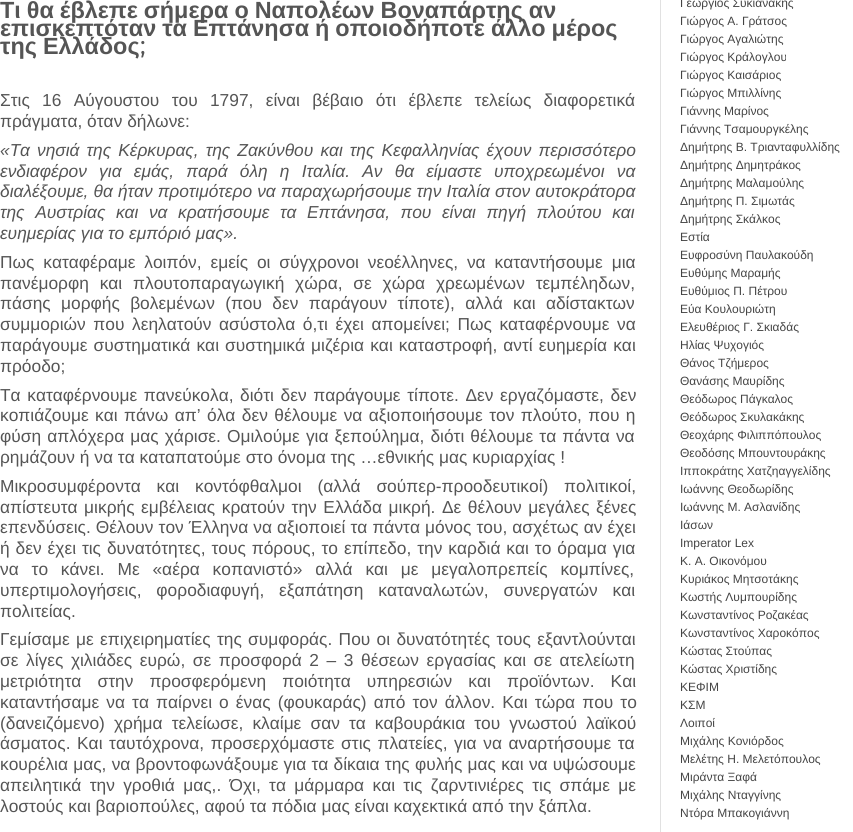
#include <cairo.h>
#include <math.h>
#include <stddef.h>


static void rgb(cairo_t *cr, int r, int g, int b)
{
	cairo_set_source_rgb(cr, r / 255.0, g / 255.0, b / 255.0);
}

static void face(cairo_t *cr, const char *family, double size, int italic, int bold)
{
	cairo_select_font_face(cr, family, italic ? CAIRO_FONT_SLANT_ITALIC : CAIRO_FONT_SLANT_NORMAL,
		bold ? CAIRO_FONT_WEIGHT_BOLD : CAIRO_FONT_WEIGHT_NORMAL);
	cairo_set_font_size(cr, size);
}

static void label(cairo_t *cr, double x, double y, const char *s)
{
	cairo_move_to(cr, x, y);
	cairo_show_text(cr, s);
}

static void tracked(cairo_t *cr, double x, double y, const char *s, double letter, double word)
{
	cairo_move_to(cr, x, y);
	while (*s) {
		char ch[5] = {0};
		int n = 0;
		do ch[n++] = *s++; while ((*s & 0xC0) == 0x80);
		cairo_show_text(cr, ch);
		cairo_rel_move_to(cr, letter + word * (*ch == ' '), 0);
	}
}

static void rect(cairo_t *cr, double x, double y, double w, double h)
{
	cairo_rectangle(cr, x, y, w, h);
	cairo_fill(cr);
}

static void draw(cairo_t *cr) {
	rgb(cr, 255, 255, 255);
	cairo_paint(cr);
	rgb(cr, 225, 225, 225);
	rect(cr, 660, 0, 1, 832);
	face(cr, "Liberation Sans", 23.4, 0, 1);
	rgb(cr, 85, 85, 85);
	tracked(cr, 0, 18, "Τι θα έβλεπε σήμερα ο Ναπολέων Βοναπάρτης αν", 0, -0.5);
	tracked(cr, 0, 36, "επισκεπτόταν τα Επτάνησα ή οποιοδήποτε άλλο μέρος", 0, -0.5);
	tracked(cr, 0, 54, "της Ελλάδος", 0, -0.5);
	face(cr, "Montserrat", 23.4, 0, 1);
	label(cr, 140, 54, ";");
	face(cr, "Liberation Sans", 17.35, 0, 0);
	tracked(cr, 0, 106, "Στις 16 Αύγουστου του 1797, είναι βέβαιο ότι έβλεπε τελείως διαφορετικά", 0, 7.5);
	label(cr, 0, 127, "πράγματα, όταν δήλωνε:");
	face(cr, "Liberation Sans", 17.35, 1, 0);
	label(cr, 0, 156, "«T");
	tracked(cr, 20, 156, "α νησιά της Κέρκυρας, της Ζακύνθου και της Κεφαλληνίας έχουν περισσότερο", 0, 2.25);
	tracked(cr, 0, 177, "ενδιαφέρον για εμάς, παρά όλη η Ιταλία. Αν θα είμαστε υποχρεωμένοι να", 0, 7.4);
	tracked(cr, 0, 197, "διαλέξουμε, θα ήταν προτιμότερο να παραχωρήσουμε την Ιταλία στον αυτοκράτορα", 0, 0.25);
	tracked(cr, 0, 218, "της Αυστρίας και να κρατήσουμε τα Επτάνησα, που είναι πηγή πλούτου και", 0, 5.75);
	label(cr, 0, 239, "ευημερίας για το εμπόριό μας».");
	face(cr, "Liberation Sans", 17.35, 0, 0);
	tracked(cr, 0, 268, "Πως καταφέραμε λοιπόν, εμείς οι σύγχρονοι νεοέλληνες, να καταντήσουμε μια", 0, 4);
	tracked(cr, 0, 289, "πανέμορφη και πλουτοπαραγωγική χώρα, σε χώρα χρεωμένων τεμπέληδων,", 0, 6);
	tracked(cr, 0, 309, "πάσης μορφής βολεμένων (που δεν παράγουν τίποτε), αλλά και αδίστακτων", 0, 5.5);
	tracked(cr, 0, 330, "συμμοριών που λεηλατούν ασύστολα ό,τι έχει απομείνει; Πως καταφέρνουμε να", 0, 2.75);
	tracked(cr, 0, 351, "παράγουμε συστηματικά και συστημικά μιζέρια και καταστροφή, αντί ευημερία και", 0, 1.25);
	label(cr, 0, 372, "πρόοδο;");
	tracked(cr, 0, 401, "Tα καταφέρνουμε πανεύκολα, διότι δεν παράγουμε τίποτε. Δεν εργαζόμαστε, δεν", 0, 1.75);
	tracked(cr, 0, 421, "κοπιάζουμε και πάνω απ’ όλα δεν θέλουμε να αξιοποιήσουμε τον πλούτο, που η", 0, 1.6);
	tracked(cr, 0, 442, "φύση απλόχερα μας χάρισε. Ομιλούμε για ξεπούλημα, διότι θέλουμε τα πάντα να", 0, 1.25);
	label(cr, 0, 463, "ρημάζουν ή να τα καταπατούμε στο όνομα της …εθνικής μας κυριαρχίας !");
	tracked(cr, 0, 492, "Μικροσυμφέροντα και κοντόφθαλμοι (αλλά σούπερ-προοδευτικοί) πολιτικοί,", 0, 11);
	tracked(cr, 0, 513, "απίστευτα μικρής εμβέλειας κρατούν την Ελλάδα μικρή. Δε θέλουν μεγάλες ξένες", 0, 1.75);
	tracked(cr, 0, 533, "επενδύσεις. Θέλουν τον Έλληνα να αξιοποιεί τα πάντα μόνος του, ασχέτως αν έχει", 0, 0.25);
	tracked(cr, 0, 554, "ή δεν έχει τις δυνατότητες, τους πόρους, το επίπεδο, την καρδιά και το όραμα για", 0, 1.1);
	tracked(cr, 0, 575, "να το κάνει. Με «αέρα κοπανιστό» αλλά και με μεγαλοπρεπείς κομπίνες,", 0, 8);
	tracked(cr, 0, 596, "υπερτιμολογήσεις, φοροδιαφυγή, εξαπάτηση καταναλωτών, συνεργατών και", 0, 10);
	label(cr, 0, 617, "πολιτείας.");
	tracked(cr, 0, 645, "Γεμίσαμε με επιχειρηματίες της συμφοράς. Που οι δυνατότητές τους εξαντλούνται", 0, 1.5);
	tracked(cr, 0, 666, "σε λίγες χιλιάδες ευρώ, σε προσφορά 2 – 3 θέσεων εργασίας και σε ατελείωτη", 0, 2.75);
	tracked(cr, 0, 687, "μετριότητα στην προσφερόμενη ποιότητα υπηρεσιών και προϊόντων. Και", 0, 11.25);
	tracked(cr, 0, 708, "καταντήσαμε να τα παίρνει ο ένας (φουκαράς) από τον άλλον. Και τώρα που το", 0, 2.25);
	tracked(cr, 0, 729, "(δανειζόμενο) χρήμα τελείωσε, κλαίμε σαν τα καβουράκια του γνωστού λαϊκού", 0, 4.25);
	tracked(cr, 0, 749, "άσματος. Και ταυτόχρονα, προσερχόμαστε στις πλατείες, για να αναρτήσουμε τα", 0, 1.75);
	tracked(cr, 0, 770, "κουρέλια μας, να βροντοφωνάξουμε για τα δίκαια της φυλής μας και να υψώσουμε", 0, 0.4);
	tracked(cr, 0, 791, "απειλητικά την γροθιά μας,. Όχι, τα μάρμαρα και τις ζαρντινιέρες τις σπάμε με", 0, 3.5);
	label(cr, 0, 812, "λοστούς και βαριοπούλες, αφού τα πόδια μας είναι καχεκτικά από την ξάπλα.");
	face(cr, "Liberation Sans", 12, 0, 0);
	rgb(cr, 68, 68, 68);
	label(cr, 680, 7, "Γεώργιος Συκιανάκης");
	label(cr, 680, 25, "Γιώργος Α. Γράτσος");
	label(cr, 680, 43, "Γιώργος Αγαλιώτης");
	label(cr, 680, 61, "Γιώργος Κράλογλου");
	label(cr, 680, 79, "Γιώργος Καισάριος");
	label(cr, 680, 97, "Γιώργος Μπιλλίνης");
	label(cr, 680, 115, "Γιάννης Μαρίνος");
	label(cr, 680, 133, "Γιάννης Τσαμουργκέλης");
	label(cr, 680, 151, "Δημήτρης Β. Τριανταφυλλίδης");
	label(cr, 680, 169, "Δημήτρης Δημητράκος");
	label(cr, 680, 187, "Δημήτρης Μαλαμούλης");
	label(cr, 680, 205, "Δημήτρης Π. Σιμωτάς");
	label(cr, 680, 223, "Δημήτρης Σκάλκος");
	label(cr, 680, 241, "Εστία");
	label(cr, 680, 259, "Ευφροσύνη Παυλακούδη");
	label(cr, 680, 277, "Ευθύμης Μαραμής");
	label(cr, 680, 295, "Ευθύμιος Π. Πέτρου");
	label(cr, 680, 313, "Εύα Κουλουριώτη");
	label(cr, 680, 331, "Ελευθέριος Γ. Σκιαδάς");
	label(cr, 680, 349, "Ηλίας Ψυχογιός");
	label(cr, 680, 367, "Θάνος Τζήμερος");
	label(cr, 680, 385, "Θανάσης Μαυρίδης");
	label(cr, 680, 403, "Θεόδωρος Πάγκαλος");
	label(cr, 680, 421, "Θεόδωρος Σκυλακάκης");
	label(cr, 680, 439, "Θεοχάρης Φιλιππόπουλος");
	label(cr, 680, 457, "Θεοδόσης Μπουντουράκης");
	label(cr, 680, 475, "Ιπποκράτης Χατζηαγγελίδης");
	label(cr, 680, 493, "Ιωάννης Θεοδωρίδης");
	label(cr, 680, 511, "Ιωάννης Μ. Ασλανίδης");
	label(cr, 680, 529, "Ιάσων");
	label(cr, 680, 547, "Ιmperator Lex");
	label(cr, 680, 565, "Κ. Α. Οικονόμου");
	label(cr, 680, 583, "Κυριάκος Μητσοτάκης");
	label(cr, 680, 601, "Κωστής Λυμπουρίδης");
	label(cr, 680, 619, "Κωνσταντίνος Ροζακέας");
	label(cr, 680, 637, "Κωνσταντίνος Χαροκόπος");
	label(cr, 680, 655, "Κώστας Στούπας");
	label(cr, 680, 673, "Κώστας Χριστίδης");
	label(cr, 680, 691, "ΚΕΦΙΜ");
	label(cr, 680, 709, "ΚΣΜ");
	label(cr, 680, 727, "Λοιποί");
	label(cr, 680, 745, "Μιχάλης Κονιόρδος");
	label(cr, 680, 763, "Μελέτης Η. Μελετόπουλος");
	label(cr, 680, 781, "Μιράντα Ξαφά");
	label(cr, 680, 799, "Μιχάλης Νταγγίνης");
	label(cr, 680, 817, "Ντόρα Μπακογιάννη");
}

int main(void) {
	cairo_surface_t *surface = cairo_image_surface_create(CAIRO_FORMAT_RGB24, 853, 832);
	cairo_t *cr = cairo_create(surface);
	cairo_font_options_t *options = cairo_font_options_create();
	cairo_font_options_set_hint_metrics(options, CAIRO_HINT_METRICS_OFF);
	cairo_font_options_set_hint_style(options, CAIRO_HINT_STYLE_NONE);
	cairo_set_font_options(cr, options);
	cairo_set_miter_limit(cr, 4);
	draw(cr);
	cairo_surface_write_to_png(surface, "render.png");
	cairo_font_options_destroy(options);
	cairo_destroy(cr);
	cairo_surface_destroy(surface);
	return 0;
}
